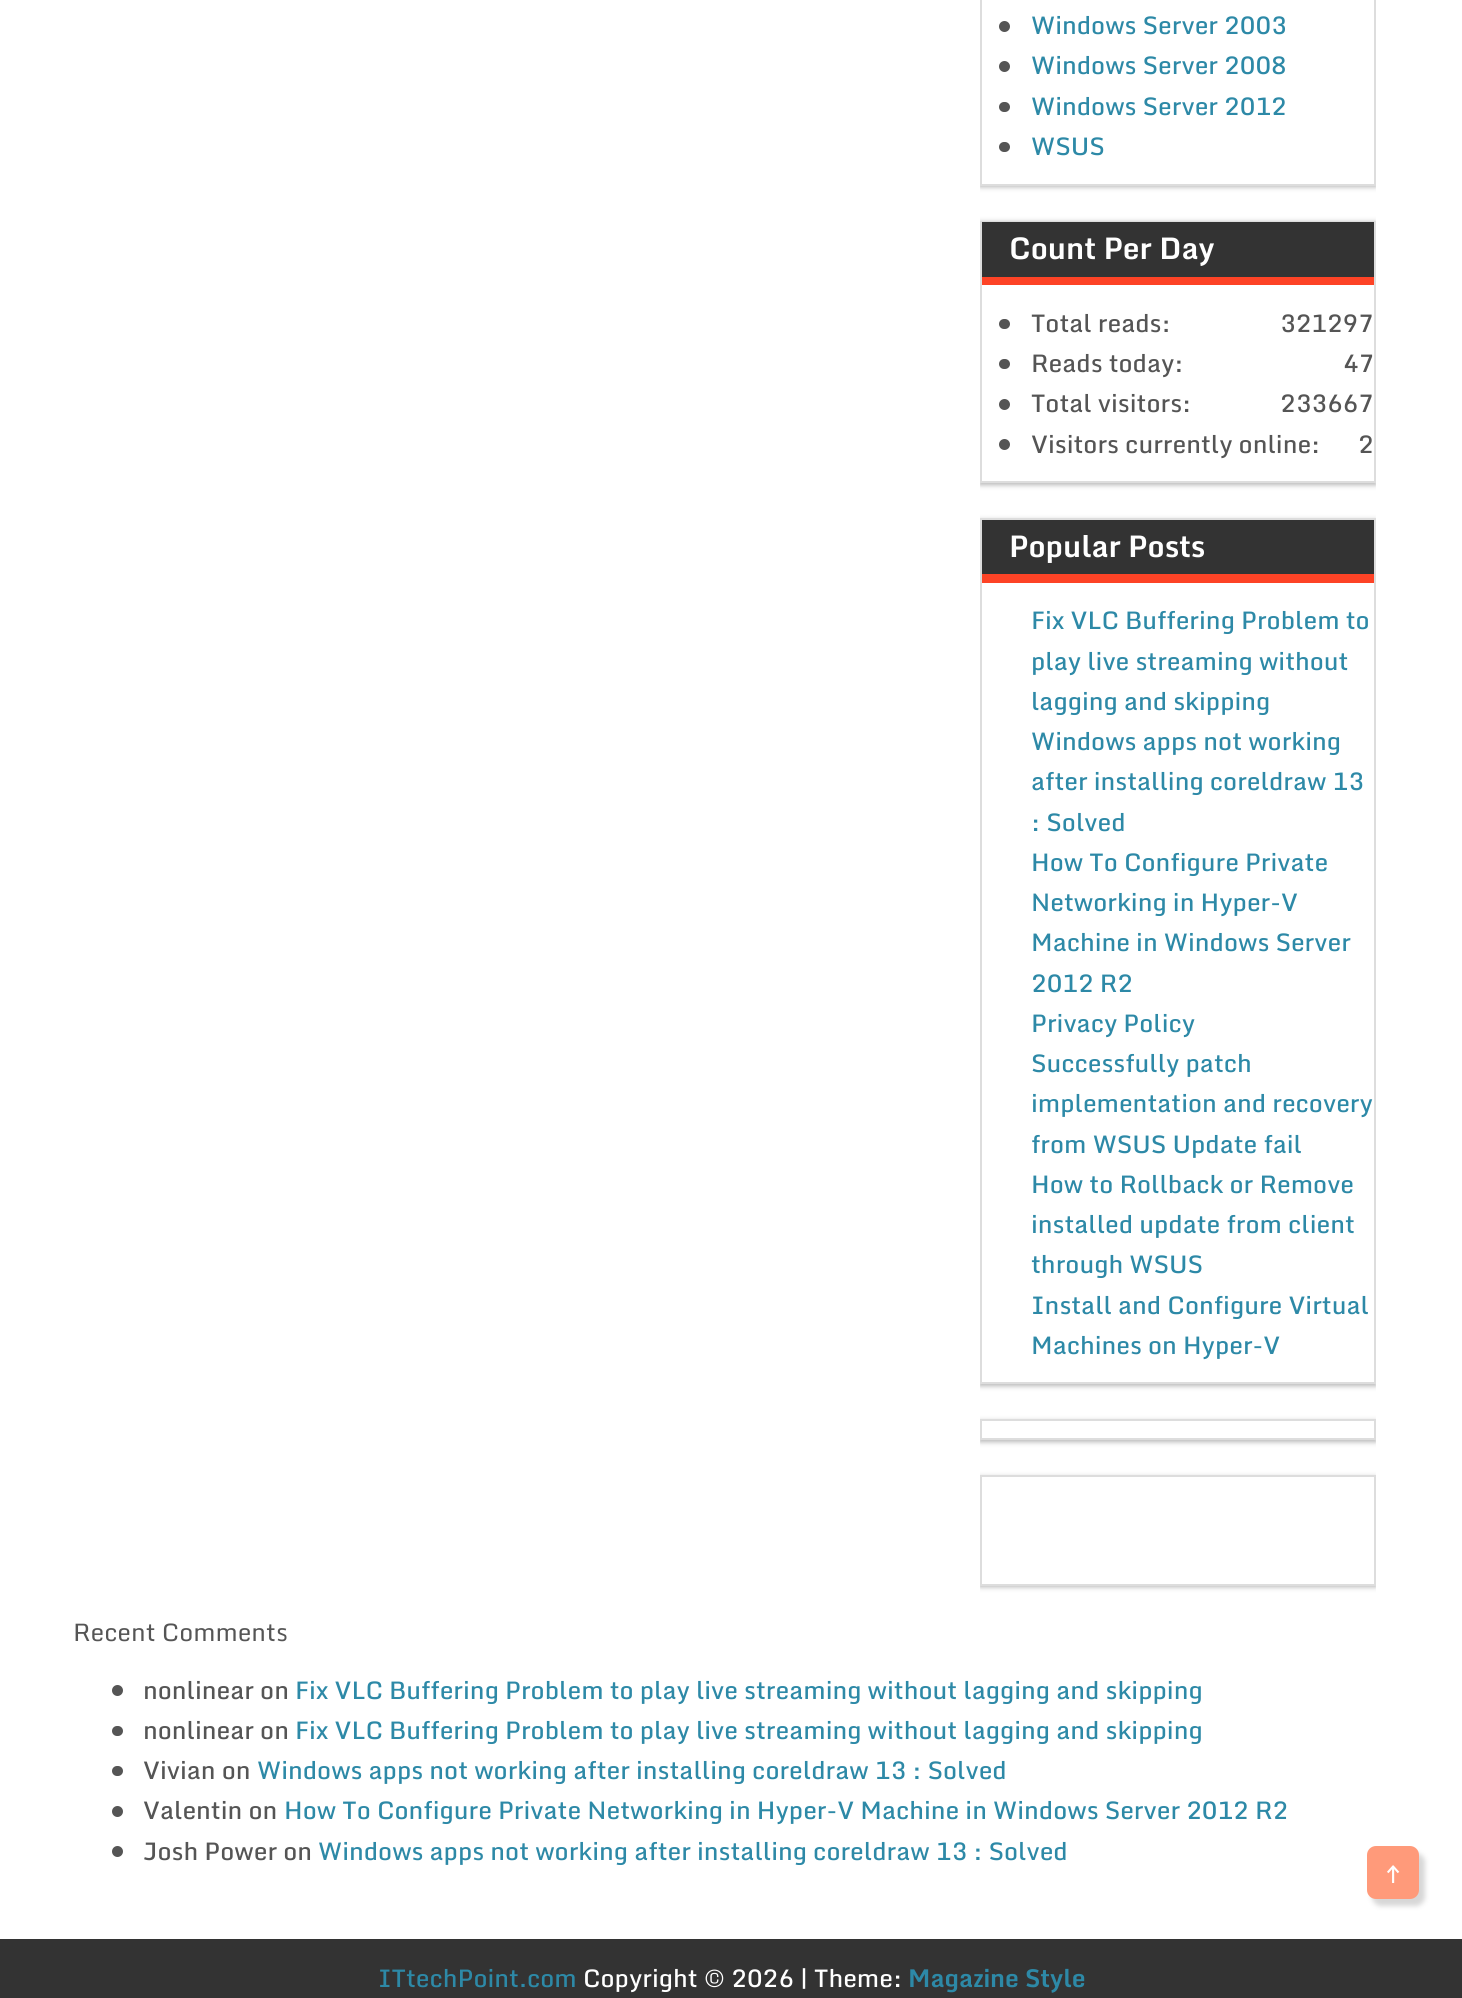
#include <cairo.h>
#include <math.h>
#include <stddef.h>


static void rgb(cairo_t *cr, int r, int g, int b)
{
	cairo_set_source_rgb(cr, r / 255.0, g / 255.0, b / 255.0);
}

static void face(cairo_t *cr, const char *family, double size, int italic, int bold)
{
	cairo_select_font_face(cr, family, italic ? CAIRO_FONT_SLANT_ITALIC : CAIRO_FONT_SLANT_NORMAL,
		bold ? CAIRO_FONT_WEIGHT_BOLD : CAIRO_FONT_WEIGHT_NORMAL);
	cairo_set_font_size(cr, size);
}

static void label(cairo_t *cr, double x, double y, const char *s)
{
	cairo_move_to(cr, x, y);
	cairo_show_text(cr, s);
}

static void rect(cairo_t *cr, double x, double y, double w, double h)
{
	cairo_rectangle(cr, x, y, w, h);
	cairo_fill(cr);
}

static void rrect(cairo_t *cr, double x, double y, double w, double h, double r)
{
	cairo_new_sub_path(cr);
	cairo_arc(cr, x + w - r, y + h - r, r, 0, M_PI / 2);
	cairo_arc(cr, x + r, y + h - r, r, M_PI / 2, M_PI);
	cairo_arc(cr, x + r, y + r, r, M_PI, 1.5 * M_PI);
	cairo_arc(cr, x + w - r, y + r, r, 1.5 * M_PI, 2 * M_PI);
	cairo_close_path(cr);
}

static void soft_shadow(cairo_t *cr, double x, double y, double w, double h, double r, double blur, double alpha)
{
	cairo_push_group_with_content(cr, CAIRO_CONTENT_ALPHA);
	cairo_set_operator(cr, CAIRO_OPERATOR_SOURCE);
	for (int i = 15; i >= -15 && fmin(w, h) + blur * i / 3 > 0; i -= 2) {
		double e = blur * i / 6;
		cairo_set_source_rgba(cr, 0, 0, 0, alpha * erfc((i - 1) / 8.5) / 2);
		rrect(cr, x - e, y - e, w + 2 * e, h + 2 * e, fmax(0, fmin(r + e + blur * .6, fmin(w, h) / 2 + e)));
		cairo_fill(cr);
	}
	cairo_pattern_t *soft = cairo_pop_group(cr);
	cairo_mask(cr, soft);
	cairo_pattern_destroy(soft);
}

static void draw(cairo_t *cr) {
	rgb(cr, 255, 255, 255);
	cairo_paint(cr);
	cairo_save(cr);
	cairo_rectangle(cr, 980, 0, 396, 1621);
	cairo_clip(cr);
	rgb(cr, 181, 181, 181);
	soft_shadow(cr, 980, -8, 396, 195, 0, 2.5, 1);
	cairo_restore(cr);
	rgb(cr, 255, 255, 255);
	cairo_rectangle(cr, 981, -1, 394, 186);
	cairo_fill_preserve(cr);
	rgb(cr, 221, 221, 221);
	cairo_stroke(cr);
	rgb(cr, 85, 85, 85);
	cairo_arc(cr, 1004.5, 26.5, 5.5, 0, 2 * M_PI);
	cairo_fill(cr);
	face(cr, "Monda Medium", 24.5, 0, 0);
	rgb(cr, 45, 137, 167);
	label(cr, 1031, 34, "Windows Server 2003");
	rgb(cr, 85, 85, 85);
	cairo_new_path(cr);
	cairo_arc(cr, 1004.5, 66.5, 5.5, 0, 2 * M_PI);
	cairo_fill(cr);
	rgb(cr, 45, 137, 167);
	label(cr, 1031, 74, "Windows Server 2008");
	rgb(cr, 85, 85, 85);
	rrect(cr, 999, 102, 11, 10, 5);
	cairo_fill(cr);
	rgb(cr, 45, 137, 167);
	label(cr, 1031, 115, "Windows Server 2012");
	rgb(cr, 85, 85, 85);
	rrect(cr, 999, 142, 11, 10, 5);
	cairo_fill(cr);
	rgb(cr, 45, 137, 167);
	label(cr, 1031, 155, "WSUS");
	cairo_save(cr);
	cairo_rectangle(cr, 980, 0, 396, 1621);
	cairo_clip(cr);
	rgb(cr, 181, 181, 181);
	soft_shadow(cr, 980, 222, 396, 263, 0, 2.5, 1);
	cairo_restore(cr);
	rgb(cr, 255, 255, 255);
	rect(cr, 982, 285, 392, 196);
	cairo_rectangle(cr, 981, 222, 394, 260);
	rgb(cr, 221, 221, 221);
	cairo_stroke(cr);
	rgb(cr, 51, 51, 51);
	rect(cr, 982, 222, 392, 55);
	rgb(cr, 253, 67, 38);
	rect(cr, 982, 277, 392, 8);
	face(cr, "Monda", 29.75, 0, 1);
	rgb(cr, 255, 255, 255);
	label(cr, 1009, 259, "Count Per Day");
	rgb(cr, 85, 85, 85);
	rrect(cr, 999, 319, 11, 10, 5);
	cairo_fill(cr);
	face(cr, "Monda Medium", 24.5, 0, 0);
	label(cr, 1031, 332, "Total reads:");
	label(cr, 1280, 332, "321297");
	rrect(cr, 999, 359, 11, 10, 5);
	cairo_fill(cr);
	label(cr, 1031, 372, "Reads today:");
	label(cr, 1343, 372, "47");
	cairo_new_path(cr);
	cairo_arc(cr, 1004.5, 404.5, 5.5, 0, 2 * M_PI);
	cairo_fill(cr);
	label(cr, 1031, 412, "Total visitors:");
	label(cr, 1280, 412, "233667");
	cairo_new_path(cr);
	cairo_arc(cr, 1004.5, 444.5, 5.5, 0, 2 * M_PI);
	cairo_fill(cr);
	label(cr, 1031, 453, "Visitors currently online:");
	label(cr, 1358, 453, "2");
	cairo_save(cr);
	cairo_rectangle(cr, 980, 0, 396, 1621);
	cairo_clip(cr);
	rgb(cr, 181, 181, 181);
	soft_shadow(cr, 980, 520, 396, 866, 0, 2.5, 1);
	cairo_restore(cr);
	rgb(cr, 255, 255, 255);
	rect(cr, 982, 583, 392, 799);
	cairo_rectangle(cr, 981, 519, 394, 864);
	rgb(cr, 221, 221, 221);
	cairo_stroke(cr);
	rgb(cr, 51, 51, 51);
	rect(cr, 982, 520, 392, 54);
	rgb(cr, 253, 67, 38);
	rect(cr, 982, 574, 392, 9);
	face(cr, "Monda", 29.75, 0, 1);
	rgb(cr, 255, 255, 255);
	label(cr, 1009, 557, "Popular Posts");
	face(cr, "Monda Medium", 24.5, 0, 0);
	rgb(cr, 45, 137, 167);
	label(cr, 1031, 629, "Fix VLC Buffering Problem to");
	label(cr, 1031, 670, "play live streaming without");
	label(cr, 1031, 710, "lagging and skipping");
	label(cr, 1031, 750, "Windows apps not working");
	label(cr, 1031, 790, "after installing coreldraw 13");
	label(cr, 1031, 831, ": Solved");
	label(cr, 1031, 871, "How To Configure Private");
	label(cr, 1031, 911, "Networking in Hyper-V");
	label(cr, 1031, 951, "Machine in Windows Server");
	label(cr, 1031, 992, "2012 R2");
	label(cr, 1031, 1032, "Privacy Policy");
	label(cr, 1031, 1072, "Successfully patch");
	label(cr, 1031, 1112, "implementation and recovery");
	label(cr, 1031, 1153, "from WSUS Update fail");
	label(cr, 1031, 1193, "How to Rollback or Remove");
	label(cr, 1031, 1233, "installed update from client");
	label(cr, 1031, 1273, "through WSUS");
	label(cr, 1031, 1314, "Install and Configure Virtual");
	label(cr, 1031, 1354, "Machines on Hyper-V");
	cairo_save(cr);
	cairo_rectangle(cr, 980, 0, 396, 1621);
	cairo_clip(cr);
	rgb(cr, 181, 181, 181);
	soft_shadow(cr, 980, 1421, 396, 21, 0, 2.5, 1);
	cairo_restore(cr);
	rgb(cr, 255, 255, 255);
	cairo_rectangle(cr, 981, 1420, 394, 19);
	cairo_fill_preserve(cr);
	rgb(cr, 221, 221, 221);
	cairo_stroke(cr);
	cairo_save(cr);
	cairo_rectangle(cr, 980, 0, 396, 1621);
	cairo_clip(cr);
	rgb(cr, 181, 181, 181);
	soft_shadow(cr, 980, 1477, 396, 110, 0, 2.5, 1);
	cairo_restore(cr);
	rgb(cr, 255, 255, 255);
	cairo_rectangle(cr, 981, 1476, 394, 109);
	cairo_fill_preserve(cr);
	rgb(cr, 221, 221, 221);
	cairo_stroke(cr);
	face(cr, "Monda", 24.5, 0, 0);
	rgb(cr, 85, 85, 85);
	label(cr, 73, 1641, "Recent Comments");
	cairo_new_path(cr);
	cairo_arc(cr, 117.5, 1690.5, 5.5, 0, 2 * M_PI);
	cairo_fill(cr);
	face(cr, "Monda Medium", 24.5, 0, 0);
	label(cr, 143, 1699, "nonlinear on");
	rgb(cr, 45, 137, 167);
	label(cr, 295, 1699, "Fix VLC Buffering Problem to play live streaming without lagging and skipping");
	rgb(cr, 85, 85, 85);
	rrect(cr, 112, 1726, 11, 10, 5);
	cairo_fill(cr);
	label(cr, 143, 1739, "nonlinear on");
	rgb(cr, 45, 137, 167);
	label(cr, 295, 1739, "Fix VLC Buffering Problem to play live streaming without lagging and skipping");
	rgb(cr, 85, 85, 85);
	rrect(cr, 112, 1766, 11, 10, 5);
	cairo_fill(cr);
	label(cr, 143, 1779, "Vivian on");
	rgb(cr, 45, 137, 167);
	label(cr, 257, 1779, "Windows apps not working after installing coreldraw 13 : Solved");
	rgb(cr, 85, 85, 85);
	cairo_new_path(cr);
	cairo_arc(cr, 117.5, 1811.5, 5.5, 0, 2 * M_PI);
	cairo_fill(cr);
	label(cr, 143, 1819, "Valentin on");
	rgb(cr, 45, 137, 167);
	label(cr, 284, 1819, "How To Configure Private Networking in Hyper-V Machine in Windows Server 2012 R2");
	rgb(cr, 85, 85, 85);
	cairo_new_path(cr);
	cairo_arc(cr, 117.5, 1851.5, 5.5, 0, 2 * M_PI);
	cairo_fill(cr);
	label(cr, 143, 1860, "Josh Power on");
	rgb(cr, 45, 137, 167);
	label(cr, 318, 1860, "Windows apps not working after installing coreldraw 13 : Solved");
	rgb(cr, 51, 51, 51);
	rect(cr, 0, 1939, 1462, 59);
	rgb(cr, 215, 215, 215);
	soft_shadow(cr, 1372, 1853, 53, 53, 9, 2.5, 1);
	rgb(cr, 255, 154, 122);
	rrect(cr, 1367, 1846, 52, 53, 9);
	cairo_fill(cr);
	rgb(cr, 255, 255, 255);
	label(cr, 1386, 1883, "↑");
	rgb(cr, 45, 137, 167);
	label(cr, 378, 1987, "ITtechPoint.com");
	rgb(cr, 255, 255, 255);
	label(cr, 583, 1987, "Copyright © 2026 | Theme:");
	face(cr, "Monda", 24.5, 0, 1);
	rgb(cr, 45, 137, 167);
	label(cr, 908, 1987, "Magazine Style");
}

int main(void) {
	cairo_surface_t *surface = cairo_image_surface_create(CAIRO_FORMAT_RGB24, 1462, 1998);
	cairo_t *cr = cairo_create(surface);
	cairo_font_options_t *options = cairo_font_options_create();
	cairo_font_options_set_hint_metrics(options, CAIRO_HINT_METRICS_OFF);
	cairo_font_options_set_hint_style(options, CAIRO_HINT_STYLE_NONE);
	cairo_set_font_options(cr, options);
	cairo_set_miter_limit(cr, 4);
	draw(cr);
	cairo_surface_write_to_png(surface, "render.png");
	cairo_font_options_destroy(options);
	cairo_destroy(cr);
	cairo_surface_destroy(surface);
	return 0;
}
